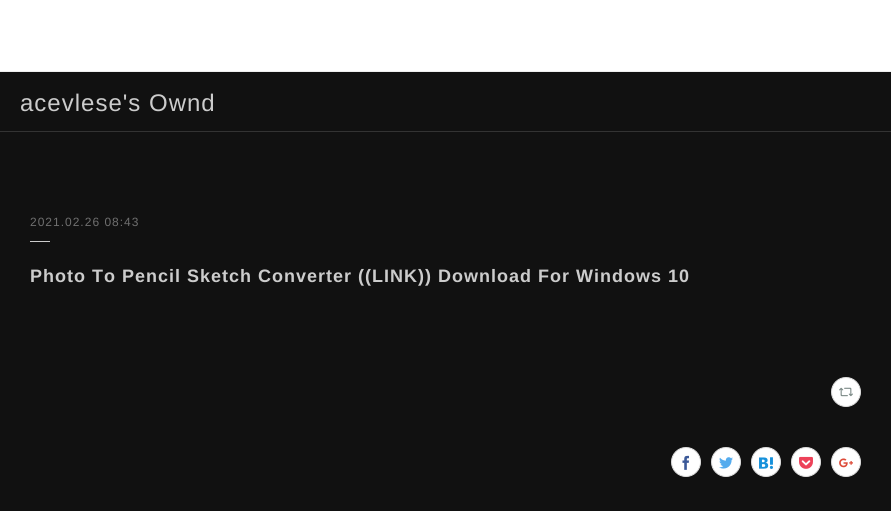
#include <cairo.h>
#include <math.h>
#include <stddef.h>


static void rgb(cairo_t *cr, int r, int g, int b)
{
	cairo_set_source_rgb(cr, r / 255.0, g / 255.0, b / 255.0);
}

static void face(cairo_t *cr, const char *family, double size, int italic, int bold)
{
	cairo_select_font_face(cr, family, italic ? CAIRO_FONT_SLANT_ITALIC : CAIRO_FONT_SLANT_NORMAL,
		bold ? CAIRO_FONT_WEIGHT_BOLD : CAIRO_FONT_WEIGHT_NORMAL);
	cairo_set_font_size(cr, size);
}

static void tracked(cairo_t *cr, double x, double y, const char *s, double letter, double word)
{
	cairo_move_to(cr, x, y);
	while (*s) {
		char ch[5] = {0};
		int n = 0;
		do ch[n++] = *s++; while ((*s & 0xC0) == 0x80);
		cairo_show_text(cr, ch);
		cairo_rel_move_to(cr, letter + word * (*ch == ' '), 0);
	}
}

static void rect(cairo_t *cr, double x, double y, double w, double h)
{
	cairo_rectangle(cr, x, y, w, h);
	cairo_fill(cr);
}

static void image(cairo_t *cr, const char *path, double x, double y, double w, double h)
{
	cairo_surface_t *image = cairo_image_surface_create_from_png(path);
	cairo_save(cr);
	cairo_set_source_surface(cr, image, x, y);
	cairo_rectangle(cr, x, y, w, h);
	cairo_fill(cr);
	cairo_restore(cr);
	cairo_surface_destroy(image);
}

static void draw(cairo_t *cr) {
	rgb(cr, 17, 17, 17);
	cairo_paint(cr);
	rgb(cr, 255, 255, 255);
	rect(cr, 0, 0, 891, 71);
	rgb(cr, 238, 238, 238);
	rect(cr, 0, 71, 891, 1);
	rgb(cr, 51, 51, 51);
	rect(cr, 0, 131, 891, 1);
	face(cr, "Liberation Sans", 24, 0, 0);
	rgb(cr, 204, 204, 204);
	tracked(cr, 20, 111, "acevlese's Ownd", 1, 0);
	face(cr, "Liberation Sans", 12, 0, 0);
	rgb(cr, 111, 111, 111);
	tracked(cr, 30, 226, "2021.02.26 08:43", 1, 0);
	rgb(cr, 204, 204, 204);
	rect(cr, 30, 241, 20, 1);
	face(cr, "Liberation Sans", 18, 0, 1);
	tracked(cr, 30, 282, "Photo To Pencil Sketch Converter ((LINK)) Download For Windows 10", 1, 0);
	rgb(cr, 255, 255, 255);
	cairo_new_path(cr);
	cairo_arc(cr, 846, 392, 14.5, 0, 2 * M_PI);
	cairo_fill_preserve(cr);
	rgb(cr, 221, 221, 221);
	cairo_set_line_width(cr, 1);
	cairo_stroke(cr);
	image(cr, "image0.png", 839, 387, 14, 10);
	rgb(cr, 255, 255, 255);
	cairo_arc(cr, 686, 462, 14.5, 0, 2 * M_PI);
	cairo_fill_preserve(cr);
	rgb(cr, 221, 221, 221);
	cairo_stroke(cr);
	image(cr, "image1.png", 682, 455, 7, 15);
	rgb(cr, 255, 255, 255);
	cairo_arc(cr, 726, 462, 14.5, 0, 2 * M_PI);
	cairo_fill_preserve(cr);
	rgb(cr, 221, 221, 221);
	cairo_stroke(cr);
	image(cr, "image2.png", 719, 457, 14, 12);
	rgb(cr, 255, 255, 255);
	cairo_arc(cr, 766, 462, 14.5, 0, 2 * M_PI);
	cairo_fill_preserve(cr);
	rgb(cr, 221, 221, 221);
	cairo_stroke(cr);
	image(cr, "image3.png", 759, 457, 14, 12);
	rgb(cr, 255, 255, 255);
	cairo_arc(cr, 806, 462, 14.5, 0, 2 * M_PI);
	cairo_fill_preserve(cr);
	rgb(cr, 221, 221, 221);
	cairo_stroke(cr);
	image(cr, "image4.png", 799, 456, 14, 13);
	rgb(cr, 255, 255, 255);
	cairo_arc(cr, 846, 462, 14.5, 0, 2 * M_PI);
	cairo_fill_preserve(cr);
	rgb(cr, 221, 221, 221);
	cairo_stroke(cr);
	image(cr, "image5.png", 839, 458, 14, 10);
}

int main(void) {
	cairo_surface_t *surface = cairo_image_surface_create(CAIRO_FORMAT_RGB24, 891, 511);
	cairo_t *cr = cairo_create(surface);
	cairo_font_options_t *options = cairo_font_options_create();
	cairo_font_options_set_hint_metrics(options, CAIRO_HINT_METRICS_OFF);
	cairo_font_options_set_hint_style(options, CAIRO_HINT_STYLE_NONE);
	cairo_set_font_options(cr, options);
	cairo_set_miter_limit(cr, 4);
	draw(cr);
	cairo_surface_write_to_png(surface, "render.png");
	cairo_font_options_destroy(options);
	cairo_destroy(cr);
	cairo_surface_destroy(surface);
	return 0;
}
